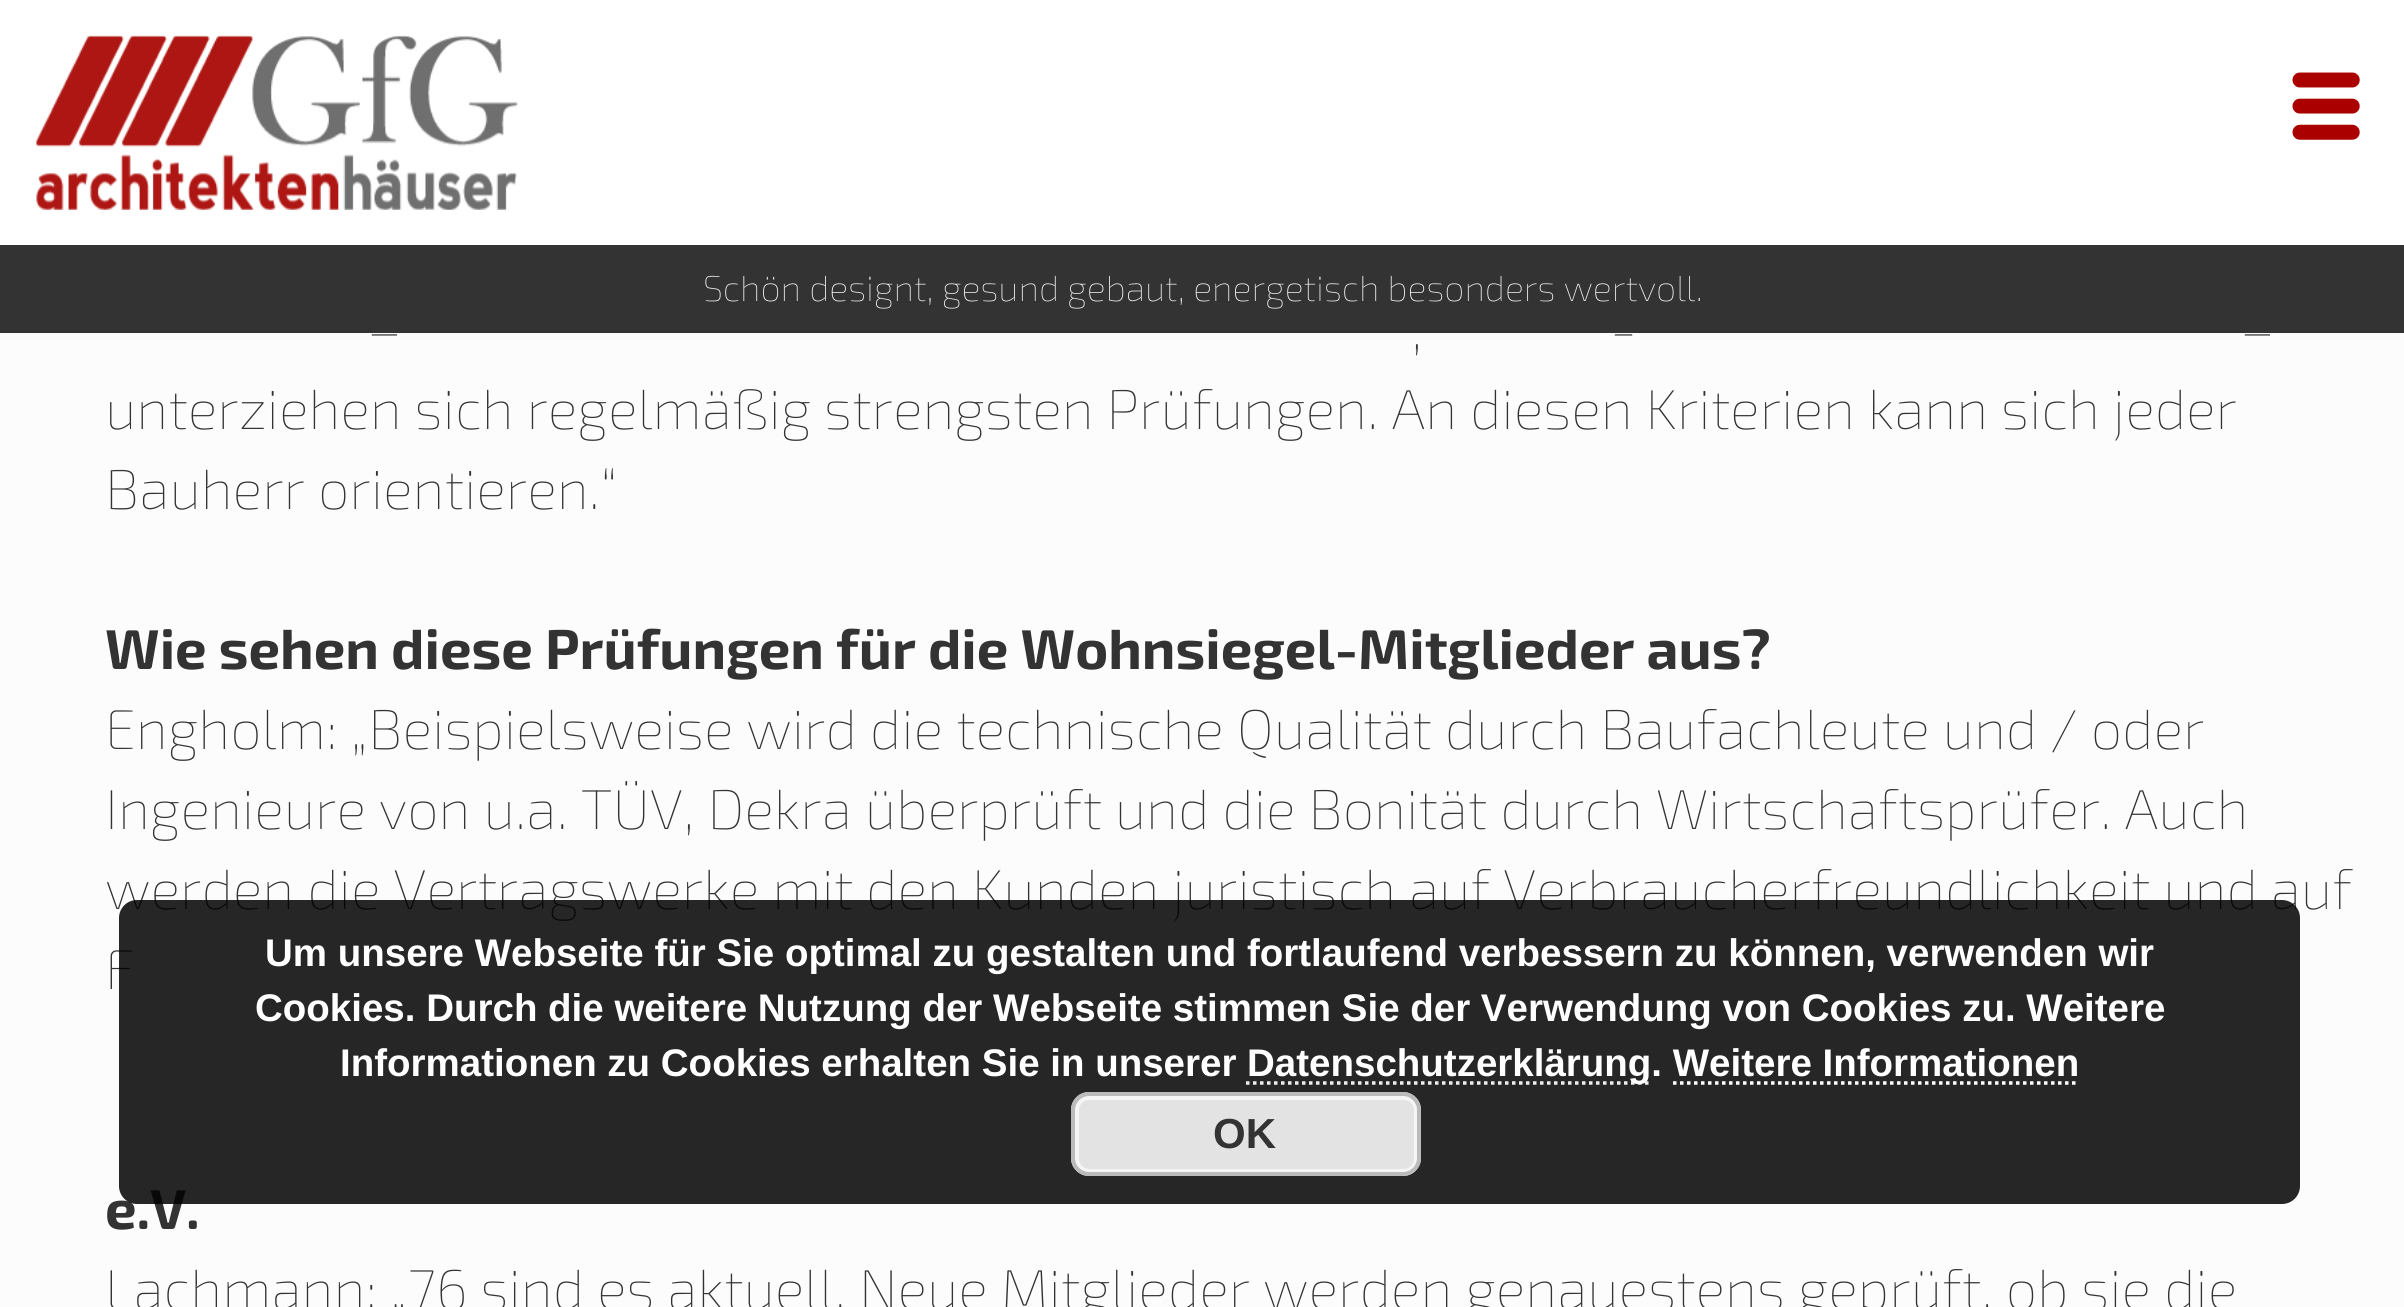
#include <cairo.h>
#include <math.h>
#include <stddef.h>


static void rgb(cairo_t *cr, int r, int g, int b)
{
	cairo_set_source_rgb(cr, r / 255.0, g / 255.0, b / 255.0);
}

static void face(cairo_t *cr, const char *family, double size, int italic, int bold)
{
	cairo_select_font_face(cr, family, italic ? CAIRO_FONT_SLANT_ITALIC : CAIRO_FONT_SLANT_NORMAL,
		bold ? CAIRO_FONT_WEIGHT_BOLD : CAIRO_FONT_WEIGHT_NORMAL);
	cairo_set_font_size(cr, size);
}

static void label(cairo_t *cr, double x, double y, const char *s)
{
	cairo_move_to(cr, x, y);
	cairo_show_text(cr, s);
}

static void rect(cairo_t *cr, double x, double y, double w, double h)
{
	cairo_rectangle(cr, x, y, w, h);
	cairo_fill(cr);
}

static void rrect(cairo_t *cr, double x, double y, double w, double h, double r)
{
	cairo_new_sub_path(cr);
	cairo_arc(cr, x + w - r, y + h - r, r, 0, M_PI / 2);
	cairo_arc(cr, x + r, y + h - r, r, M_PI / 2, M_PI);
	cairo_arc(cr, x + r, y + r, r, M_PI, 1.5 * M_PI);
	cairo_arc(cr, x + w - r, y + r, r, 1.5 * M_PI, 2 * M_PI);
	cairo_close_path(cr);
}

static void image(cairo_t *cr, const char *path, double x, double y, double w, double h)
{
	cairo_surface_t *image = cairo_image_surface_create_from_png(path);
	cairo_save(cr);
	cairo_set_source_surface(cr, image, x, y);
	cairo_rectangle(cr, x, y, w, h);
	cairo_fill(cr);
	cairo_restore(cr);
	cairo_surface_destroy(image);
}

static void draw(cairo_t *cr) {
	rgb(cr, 252, 252, 252);
	cairo_paint(cr);
	rgb(cr, 255, 255, 255);
	rect(cr, 0, 0, 2404, 245);
	image(cr, "image0.png", 36, 35, 483, 175);
	image(cr, "image1.png", 2292, 72, 68, 68);
	rgb(cr, 51, 51, 51);
	rect(cr, 0, 245, 2404, 88);
	face(cr, "Exo 2 Thin", 35.85, 0, 0);
	rgb(cr, 238, 238, 238);
	label(cr, 703, 301, "Schön designt, gesund gebaut, energetisch besonders wertvoll.");
	face(cr, "Exo 2 Thin", 56, 0, 0);
	rgb(cr, 51, 51, 51);
	label(cr, 367, 349, "–");
	label(cr, 1610, 349, "-");
	label(cr, 2240, 349, "–");
	label(cr, 1411, 349, ",");
	label(cr, 105, 429, "unterziehen sich regelmäßig strengsten Prüfungen. An diesen Kriterien kann sich jeder");
	label(cr, 105, 509, "Bauherr orientieren.“");
	face(cr, "Exo 2", 56, 0, 1);
	label(cr, 105, 669, "Wie sehen diese Prüfungen für die Wohnsiegel-Mitglieder aus?");
	face(cr, "Exo 2 Thin", 56, 0, 0);
	label(cr, 105, 749, "Engholm: „Beispielsweise wird die technische Qualität durch Baufachleute und / oder");
	label(cr, 105, 829, "Ingenieure von u.a. TÜV, Dekra überprüft und die Bonität durch Wirtschaftsprüfer. Auch");
	label(cr, 105, 909, "werden die Vertragswerke mit den Kunden juristisch auf Verbraucherfreundlichkeit und auf");
	label(cr, 105, 989, "F");
	face(cr, "Exo 2", 56, 0, 1);
	label(cr, 105, 1229, "e.V.");
	face(cr, "Exo 2 Thin", 56, 0, 0);
	label(cr, 105, 1309, "Lachmann: „76 sind es aktuell. Neue Mitglieder werden genauestens geprüft, ob sie die");
	cairo_set_source_rgba(cr, 0, 0, 0, 0.85);
	rrect(cr, 119, 900, 2181, 304, 18);
	cairo_fill(cr);
	face(cr, "Liberation Sans", 38.5, 0, 1);
	rgb(cr, 255, 255, 255);
	label(cr, 265, 966, "Um unsere Webseite für Sie optimal zu gestalten und fortlaufend verbessern zu können, verwenden wir");
	label(cr, 255, 1021, "Cookies. Durch die weitere Nutzung der Webseite stimmen Sie der Verwendung von Cookies zu. Weitere");
	label(cr, 340, 1076, "Informationen zu Cookies erhalten Sie in unserer");
	cairo_new_path(cr);
	cairo_move_to(cr, 1246, 1083);
	cairo_line_to(cr, 1652, 1083);
	rgb(cr, 238, 238, 238);
	cairo_set_line_width(cr, 3.5);
	cairo_set_dash(cr, (double[]){3.5, 3.5}, 2, 0);
	cairo_stroke(cr);
	rgb(cr, 255, 255, 255);
	label(cr, 1247, 1076, "Datenschutzerklärung. Weitere Informationen");
	cairo_new_path(cr);
	cairo_move_to(cr, 1673, 1083);
	cairo_line_to(cr, 2079, 1083);
	cairo_stroke(cr);
	rgb(cr, 227, 227, 227);
	rrect(cr, 1071, 1092, 350, 84, 18);
	cairo_fill(cr);
	rrect(cr, 1077, 1098, 339, 73, 12);
	rgb(cr, 246, 246, 246);
	cairo_set_line_width(cr, 4);
	cairo_set_dash(cr, NULL, 0, 0);
	cairo_stroke(cr);
	rrect(cr, 1073, 1094, 346, 80, 16);
	rgb(cr, 187, 187, 187);
	cairo_stroke(cr);
	face(cr, "Liberation Sans", 42, 0, 1);
	rgb(cr, 51, 51, 51);
	label(cr, 1213, 1148, "OK");
}

int main(void) {
	cairo_surface_t *surface = cairo_image_surface_create(CAIRO_FORMAT_RGB24, 2404, 1307);
	cairo_t *cr = cairo_create(surface);
	cairo_font_options_t *options = cairo_font_options_create();
	cairo_font_options_set_hint_metrics(options, CAIRO_HINT_METRICS_OFF);
	cairo_font_options_set_hint_style(options, CAIRO_HINT_STYLE_NONE);
	cairo_set_font_options(cr, options);
	cairo_set_miter_limit(cr, 4);
	draw(cr);
	cairo_surface_write_to_png(surface, "render.png");
	cairo_font_options_destroy(options);
	cairo_destroy(cr);
	cairo_surface_destroy(surface);
	return 0;
}
